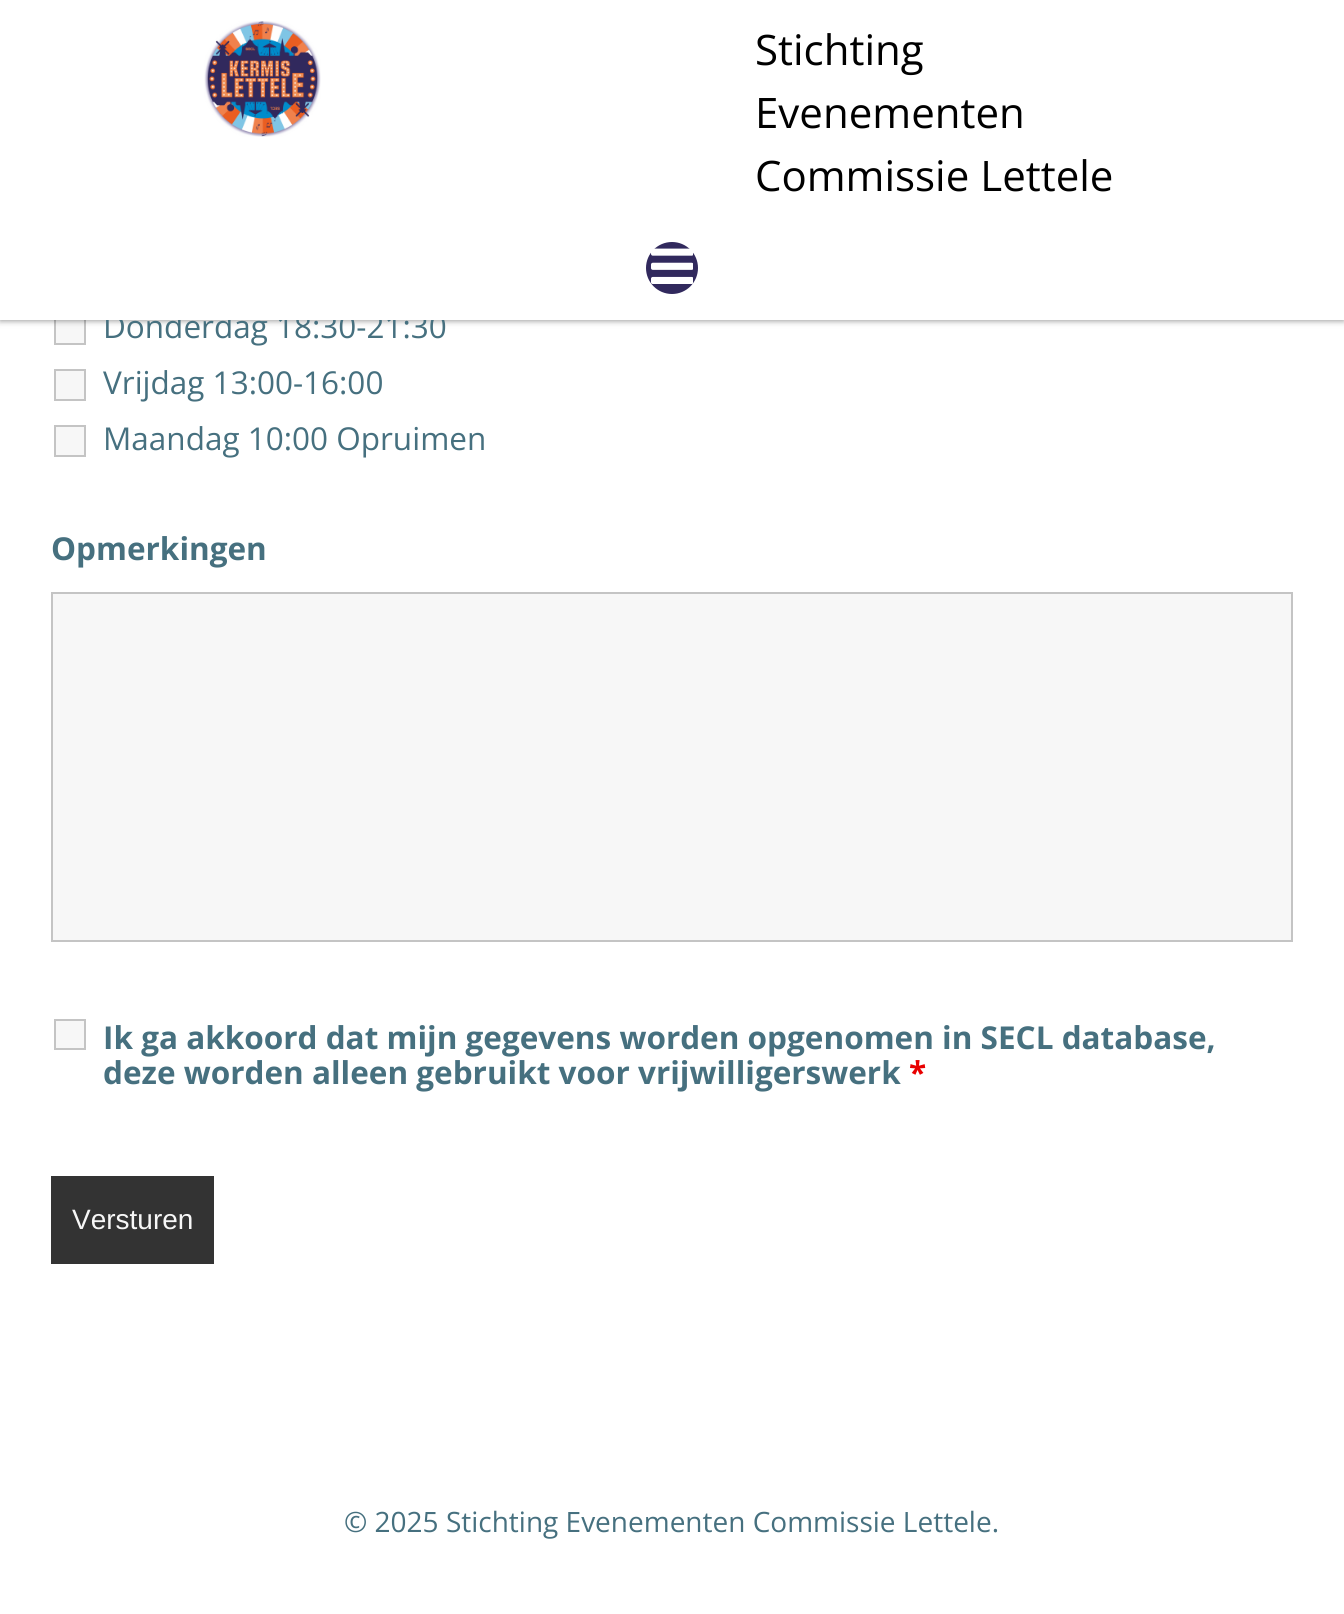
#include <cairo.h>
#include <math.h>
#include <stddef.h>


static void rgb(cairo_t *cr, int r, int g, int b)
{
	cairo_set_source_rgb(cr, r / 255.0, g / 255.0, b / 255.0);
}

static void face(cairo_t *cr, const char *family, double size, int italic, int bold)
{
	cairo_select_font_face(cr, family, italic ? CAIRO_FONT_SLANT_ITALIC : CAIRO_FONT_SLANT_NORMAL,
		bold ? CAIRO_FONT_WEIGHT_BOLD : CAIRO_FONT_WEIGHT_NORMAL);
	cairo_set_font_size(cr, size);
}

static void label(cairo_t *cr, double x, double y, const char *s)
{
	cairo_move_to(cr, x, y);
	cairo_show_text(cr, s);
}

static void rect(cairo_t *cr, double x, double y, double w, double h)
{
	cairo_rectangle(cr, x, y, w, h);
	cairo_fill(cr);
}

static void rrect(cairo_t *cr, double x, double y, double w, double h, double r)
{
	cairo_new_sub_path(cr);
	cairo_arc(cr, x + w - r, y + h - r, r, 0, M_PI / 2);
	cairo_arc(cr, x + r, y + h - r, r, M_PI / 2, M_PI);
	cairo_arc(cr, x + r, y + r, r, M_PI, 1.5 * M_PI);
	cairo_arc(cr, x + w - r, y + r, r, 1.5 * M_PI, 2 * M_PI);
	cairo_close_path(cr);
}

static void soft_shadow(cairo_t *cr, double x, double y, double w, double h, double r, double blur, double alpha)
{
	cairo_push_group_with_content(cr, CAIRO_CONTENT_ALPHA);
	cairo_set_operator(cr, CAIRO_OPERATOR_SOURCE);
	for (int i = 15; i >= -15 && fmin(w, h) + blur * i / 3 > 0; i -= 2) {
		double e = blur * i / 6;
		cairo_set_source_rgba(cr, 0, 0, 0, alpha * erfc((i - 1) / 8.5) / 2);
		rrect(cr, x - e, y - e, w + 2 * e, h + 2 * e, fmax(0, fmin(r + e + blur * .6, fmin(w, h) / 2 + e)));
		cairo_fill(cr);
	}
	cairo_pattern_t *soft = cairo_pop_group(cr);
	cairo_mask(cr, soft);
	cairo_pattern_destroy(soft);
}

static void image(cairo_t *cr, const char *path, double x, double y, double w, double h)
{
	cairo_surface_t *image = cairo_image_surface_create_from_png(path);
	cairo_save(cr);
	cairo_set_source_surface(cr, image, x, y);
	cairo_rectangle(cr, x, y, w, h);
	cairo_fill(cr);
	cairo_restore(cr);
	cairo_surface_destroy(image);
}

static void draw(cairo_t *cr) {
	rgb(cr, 255, 255, 255);
	cairo_paint(cr);
	rgb(cr, 247, 247, 247);
	rect(cr, 56, 320, 28, 23);
	cairo_rectangle(cr, 55, 314, 30, 30);
	rgb(cr, 196, 196, 196);
	cairo_stroke(cr);
	rgb(cr, 0, 0, 0);
	soft_shadow(cr, 0, 0, 1344, 320, 0, 3.5, 0.5);
	face(cr, "Open Sans", 31.5, 0, 0);
	rgb(cr, 70, 112, 127);
	label(cr, 103, 338, "Donderdag 18:30-21:30");
	rgb(cr, 255, 255, 255);
	rect(cr, 0, 0, 1344, 320);
	image(cr, "image0.png", 204, 21, 117, 116);
	face(cr, "Open Sans", 42, 0, 0);
	rgb(cr, 0, 0, 0);
	label(cr, 755, 65, "Stichting");
	label(cr, 755, 128, "Evenementen");
	label(cr, 755, 191, "Commissie Lettele");
	rgb(cr, 49, 41, 93);
	cairo_new_path(cr);
	cairo_arc(cr, 672, 268, 26, 0, 2 * M_PI);
	cairo_fill(cr);
	image(cr, "image1.png", 651, 248, 42, 36);
	rgb(cr, 247, 247, 247);
	cairo_rectangle(cr, 55, 370, 30, 30);
	cairo_fill_preserve(cr);
	rgb(cr, 196, 196, 196);
	cairo_stroke(cr);
	face(cr, "Open Sans", 31.5, 0, 0);
	rgb(cr, 70, 112, 127);
	label(cr, 103, 394, "Vrijdag 13:00-16:00");
	rgb(cr, 247, 247, 247);
	cairo_rectangle(cr, 55, 426, 30, 30);
	cairo_fill_preserve(cr);
	rgb(cr, 196, 196, 196);
	cairo_stroke(cr);
	rgb(cr, 70, 112, 127);
	label(cr, 103, 450, "Maandag 10:00 Opruimen");
	face(cr, "Open Sans", 31.5, 0, 1);
	label(cr, 51, 560, "Opmerkingen");
	rgb(cr, 247, 247, 247);
	cairo_rectangle(cr, 52, 593, 1240, 348);
	cairo_fill_preserve(cr);
	rgb(cr, 196, 196, 196);
	cairo_stroke(cr);
	rgb(cr, 247, 247, 247);
	cairo_rectangle(cr, 55, 1020, 30, 29);
	cairo_fill_preserve(cr);
	rgb(cr, 196, 196, 196);
	cairo_stroke(cr);
	rgb(cr, 70, 112, 127);
	label(cr, 103, 1049, "Ik ga akkoord dat mijn gegevens worden opgenomen in SECL database,");
	label(cr, 103, 1084, "deze worden alleen gebruikt voor vrijwilligerswerk");
	rgb(cr, 232, 0, 0);
	label(cr, 909, 1084, "*");
	rgb(cr, 51, 51, 51);
	rect(cr, 51, 1176, 163, 88);
	face(cr, "Liberation Sans", 28, 0, 0);
	rgb(cr, 247, 247, 247);
	label(cr, 72, 1229, "Versturen");
	face(cr, "Open Sans", 28, 0, 0);
	rgb(cr, 70, 112, 127);
	label(cr, 344, 1532, "© 2025 Stichting Evenementen Commissie Lettele.");
}

int main(void) {
	cairo_surface_t *surface = cairo_image_surface_create(CAIRO_FORMAT_RGB24, 1344, 1614);
	cairo_t *cr = cairo_create(surface);
	cairo_font_options_t *options = cairo_font_options_create();
	cairo_font_options_set_hint_metrics(options, CAIRO_HINT_METRICS_OFF);
	cairo_font_options_set_hint_style(options, CAIRO_HINT_STYLE_NONE);
	cairo_set_font_options(cr, options);
	cairo_set_miter_limit(cr, 4);
	draw(cr);
	cairo_surface_write_to_png(surface, "render.png");
	cairo_font_options_destroy(options);
	cairo_destroy(cr);
	cairo_surface_destroy(surface);
	return 0;
}
